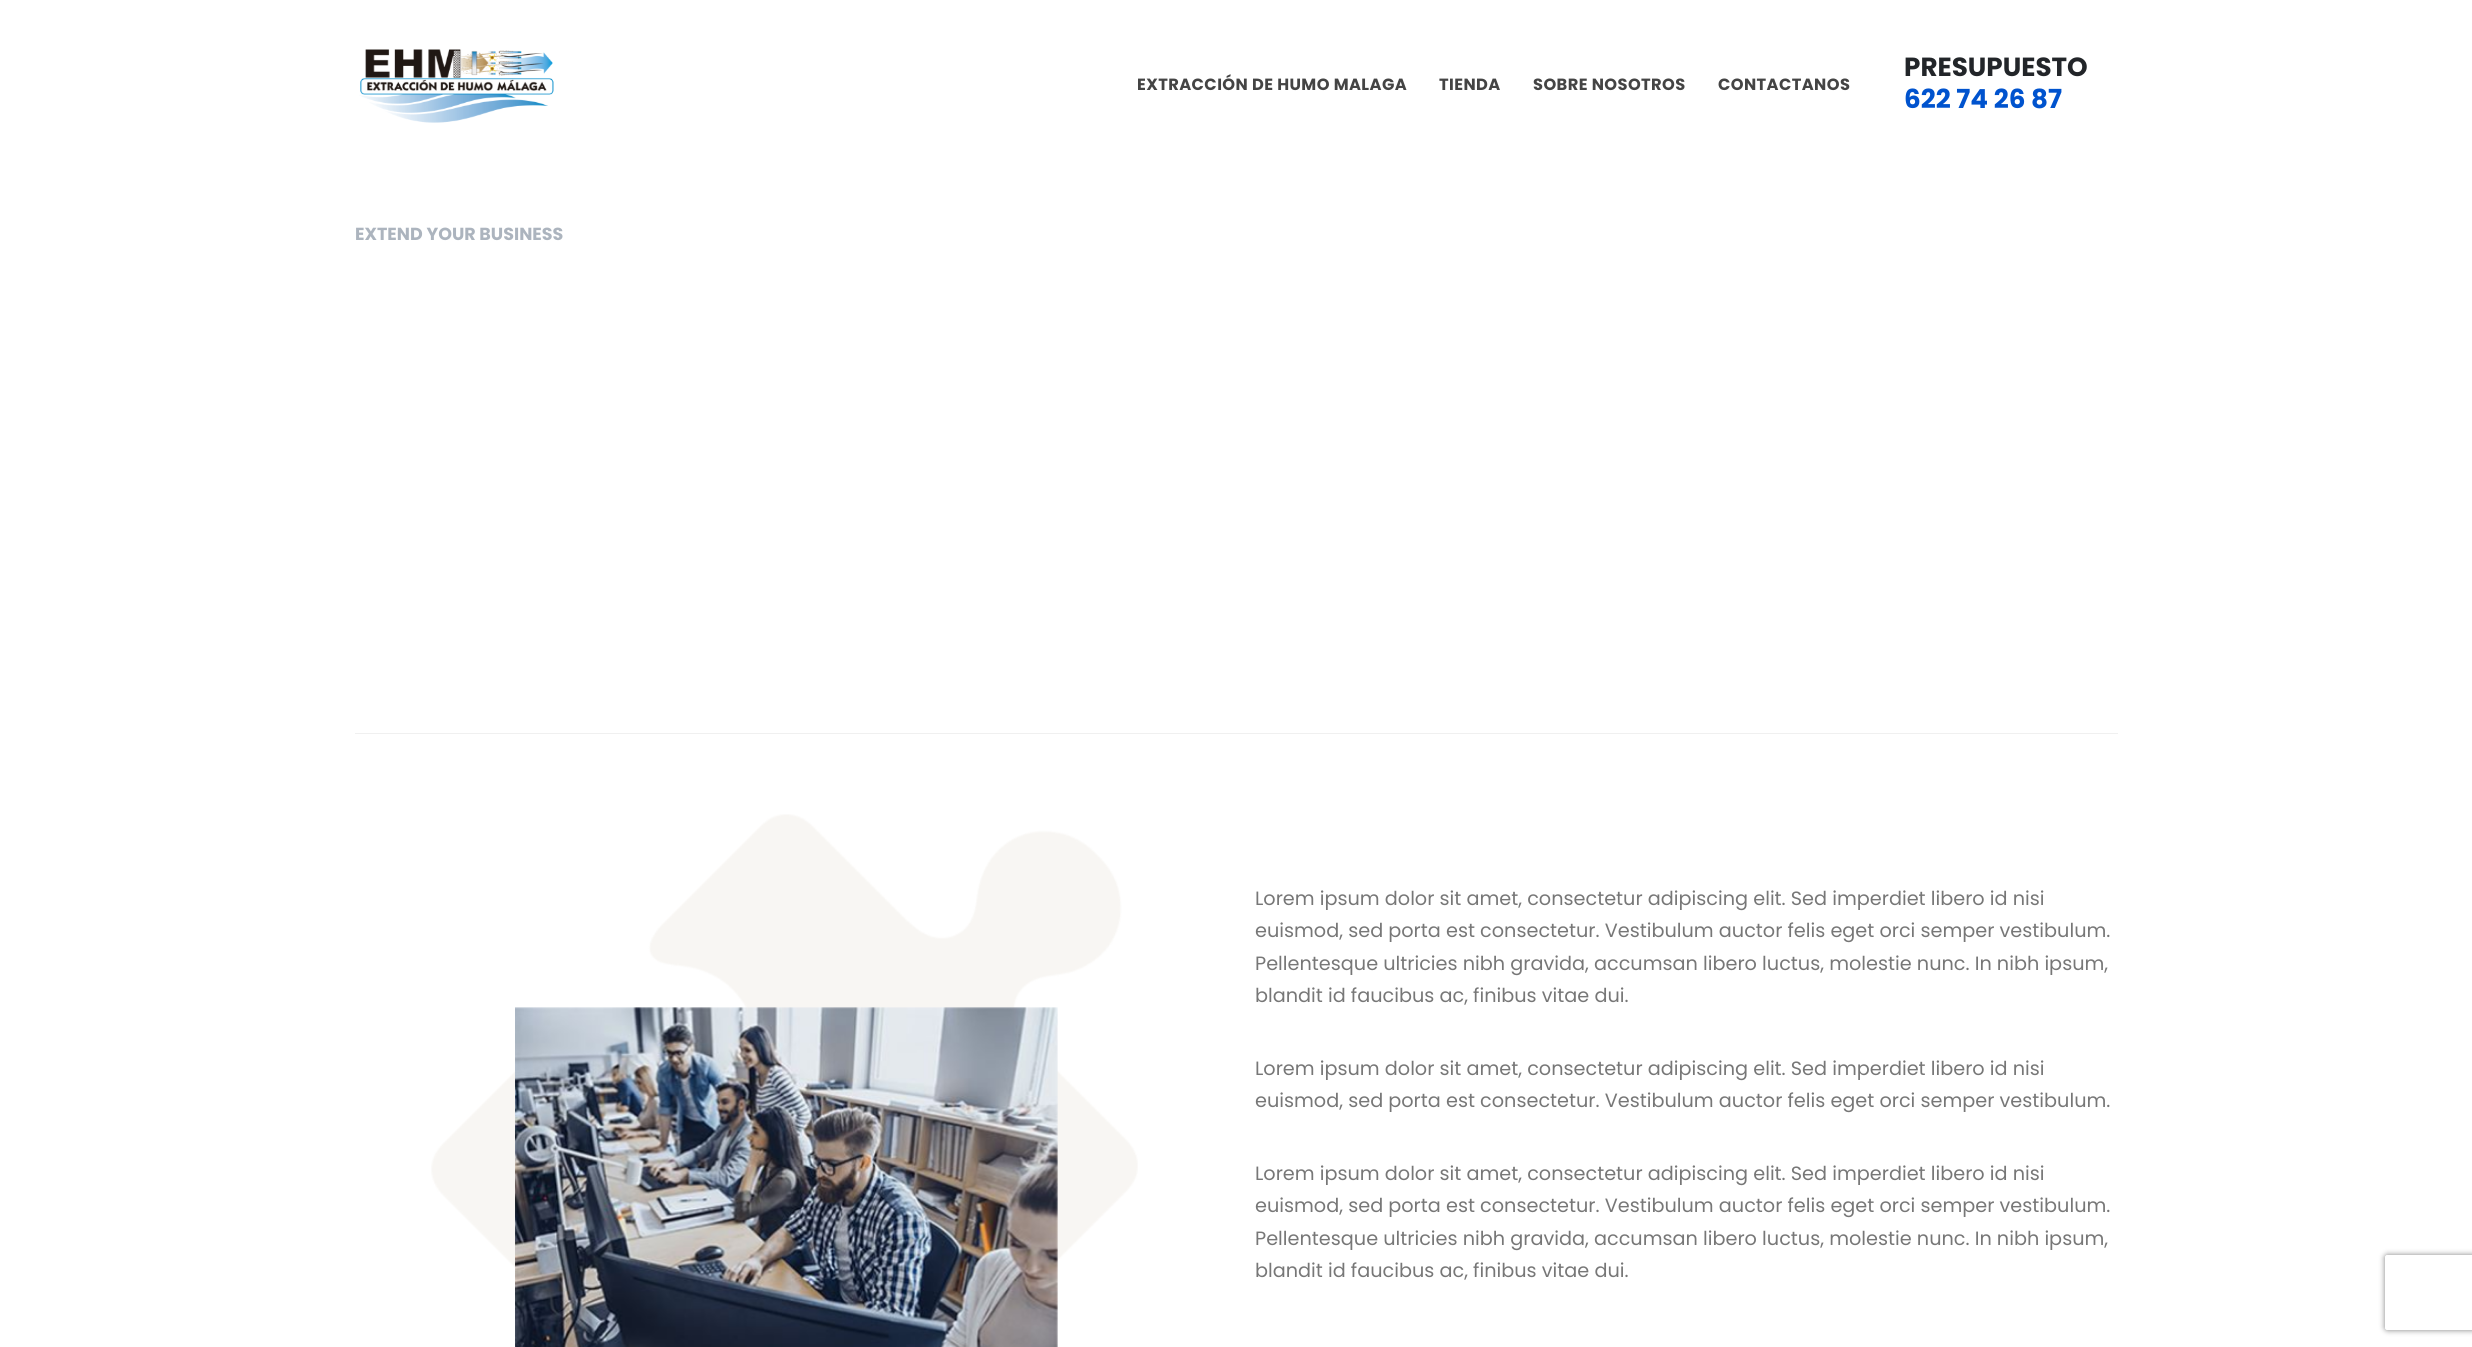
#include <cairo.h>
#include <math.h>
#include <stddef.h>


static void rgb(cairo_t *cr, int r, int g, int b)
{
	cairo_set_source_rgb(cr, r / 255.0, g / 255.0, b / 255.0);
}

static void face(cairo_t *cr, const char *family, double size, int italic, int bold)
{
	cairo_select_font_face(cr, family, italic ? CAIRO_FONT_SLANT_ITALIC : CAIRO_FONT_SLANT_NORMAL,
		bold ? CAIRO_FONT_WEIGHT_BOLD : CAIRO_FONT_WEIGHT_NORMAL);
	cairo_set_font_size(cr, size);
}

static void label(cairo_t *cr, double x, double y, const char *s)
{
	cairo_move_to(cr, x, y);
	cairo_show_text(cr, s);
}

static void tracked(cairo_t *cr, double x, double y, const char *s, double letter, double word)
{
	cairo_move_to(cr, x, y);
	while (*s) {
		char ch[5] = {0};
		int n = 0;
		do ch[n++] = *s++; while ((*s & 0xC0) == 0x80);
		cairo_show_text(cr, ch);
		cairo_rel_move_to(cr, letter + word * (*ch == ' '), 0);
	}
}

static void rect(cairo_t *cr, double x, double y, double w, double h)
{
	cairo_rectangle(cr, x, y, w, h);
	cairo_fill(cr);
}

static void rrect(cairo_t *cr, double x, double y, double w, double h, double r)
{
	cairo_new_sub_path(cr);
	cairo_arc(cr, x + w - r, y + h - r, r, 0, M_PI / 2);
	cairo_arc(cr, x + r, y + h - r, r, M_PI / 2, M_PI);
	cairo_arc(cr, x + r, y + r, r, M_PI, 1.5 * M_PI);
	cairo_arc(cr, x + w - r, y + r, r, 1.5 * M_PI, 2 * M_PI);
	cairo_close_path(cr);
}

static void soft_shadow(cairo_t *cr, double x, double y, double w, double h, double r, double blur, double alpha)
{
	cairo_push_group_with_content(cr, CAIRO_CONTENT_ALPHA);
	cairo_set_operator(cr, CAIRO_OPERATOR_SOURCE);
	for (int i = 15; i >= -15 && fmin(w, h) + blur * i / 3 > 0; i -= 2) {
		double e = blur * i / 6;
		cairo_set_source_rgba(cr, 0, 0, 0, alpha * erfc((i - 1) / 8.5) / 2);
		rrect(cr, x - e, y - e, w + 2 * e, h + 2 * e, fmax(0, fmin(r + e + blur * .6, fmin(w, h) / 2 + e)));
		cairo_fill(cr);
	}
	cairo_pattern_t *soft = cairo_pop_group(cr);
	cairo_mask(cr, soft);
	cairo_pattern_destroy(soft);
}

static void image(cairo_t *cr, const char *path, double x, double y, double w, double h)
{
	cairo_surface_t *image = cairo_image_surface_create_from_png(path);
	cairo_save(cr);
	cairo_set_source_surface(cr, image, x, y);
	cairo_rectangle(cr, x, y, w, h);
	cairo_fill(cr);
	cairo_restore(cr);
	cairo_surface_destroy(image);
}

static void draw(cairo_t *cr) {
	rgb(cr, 255, 255, 255);
	cairo_paint(cr);
	image(cr, "image0.png", 359, 49, 195, 74);
	face(cr, "Poppins", 16.25, 0, 1);
	rgb(cr, 68, 68, 68);
	tracked(cr, 1137, 90, "EXTRACCIÓN DE HUMO MALAGA", 0.4, 0);
	tracked(cr, 1439, 90, "TIENDA", 0.4, 0);
	tracked(cr, 1533, 90, "SOBRE NOSOTROS", 0.4, 0);
	tracked(cr, 1718, 90, "CONTACTANOS", 0.4, 0);
	face(cr, "Poppins", 26.25, 0, 1);
	rgb(cr, 34, 37, 41);
	label(cr, 1904, 76, "PRESUPUESTO");
	rgb(cr, 0, 83, 206);
	label(cr, 1904, 108, "622 74 26 87");
	face(cr, "Poppins", 17.5, 0, 1);
	rgb(cr, 172, 180, 190);
	label(cr, 355, 240, "EXTEND YOUR BUSINESS");
	rgb(cr, 240, 240, 240);
	rect(cr, 355, 733, 1763, 1);
	image(cr, "image1.png", 431, 814, 707, 455);
	image(cr, "image2.png", 515, 1007, 543, 340);
	face(cr, "Poppins", 19.25, 0, 0);
	rgb(cr, 119, 119, 119);
	label(cr, 1255, 905, "Lorem ipsum dolor sit amet, consectetur adipiscing elit. Sed imperdiet libero id nisi");
	label(cr, 1255, 937, "euismod, sed porta est consectetur. Vestibulum auctor felis eget orci semper vestibulum.");
	label(cr, 1255, 970, "Pellentesque ultricies nibh gravida, accumsan libero luctus, molestie nunc. In nibh ipsum,");
	label(cr, 1255, 1002, "blandit id faucibus ac, finibus vitae dui.");
	label(cr, 1255, 1075, "Lorem ipsum dolor sit amet, consectetur adipiscing elit. Sed imperdiet libero id nisi");
	label(cr, 1255, 1107, "euismod, sed porta est consectetur. Vestibulum auctor felis eget orci semper vestibulum.");
	label(cr, 1255, 1180, "Lorem ipsum dolor sit amet, consectetur adipiscing elit. Sed imperdiet libero id nisi");
	label(cr, 1255, 1212, "euismod, sed porta est consectetur. Vestibulum auctor felis eget orci semper vestibulum.");
	label(cr, 1255, 1245, "Pellentesque ultricies nibh gravida, accumsan libero luctus, molestie nunc. In nibh ipsum,");
	label(cr, 1255, 1277, "blandit id faucibus ac, finibus vitae dui.");
	cairo_save(cr);
	cairo_set_fill_rule(cr, CAIRO_FILL_RULE_EVEN_ODD);
	cairo_new_path(cr);
	cairo_move_to(cr, 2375, 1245);
	cairo_line_to(cr, 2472, 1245);
	cairo_line_to(cr, 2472, 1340);
	cairo_line_to(cr, 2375, 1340);
	cairo_close_path(cr);
	cairo_move_to(cr, 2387.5, 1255);
	cairo_line_to(cr, 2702.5, 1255);
	cairo_curve_to(cr, 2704, 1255, 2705, 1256, 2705, 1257.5);
	cairo_line_to(cr, 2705, 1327.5);
	cairo_curve_to(cr, 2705, 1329, 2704, 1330, 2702.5, 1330);
	cairo_line_to(cr, 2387.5, 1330);
	cairo_curve_to(cr, 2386, 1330, 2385, 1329, 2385, 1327.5);
	cairo_line_to(cr, 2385, 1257.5);
	cairo_curve_to(cr, 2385, 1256, 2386, 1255, 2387.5, 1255);
	cairo_close_path(cr);
	cairo_clip(cr);
	rgb(cr, 128, 128, 128);
	soft_shadow(cr, 2385, 1255, 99, 75, 2.5, 3, 1);
	cairo_restore(cr);
}

int main(void) {
	cairo_surface_t *surface = cairo_image_surface_create(CAIRO_FORMAT_RGB24, 2472, 1347);
	cairo_t *cr = cairo_create(surface);
	cairo_font_options_t *options = cairo_font_options_create();
	cairo_font_options_set_hint_metrics(options, CAIRO_HINT_METRICS_OFF);
	cairo_font_options_set_hint_style(options, CAIRO_HINT_STYLE_NONE);
	cairo_set_font_options(cr, options);
	cairo_set_miter_limit(cr, 4);
	draw(cr);
	cairo_surface_write_to_png(surface, "render.png");
	cairo_font_options_destroy(options);
	cairo_destroy(cr);
	cairo_surface_destroy(surface);
	return 0;
}
